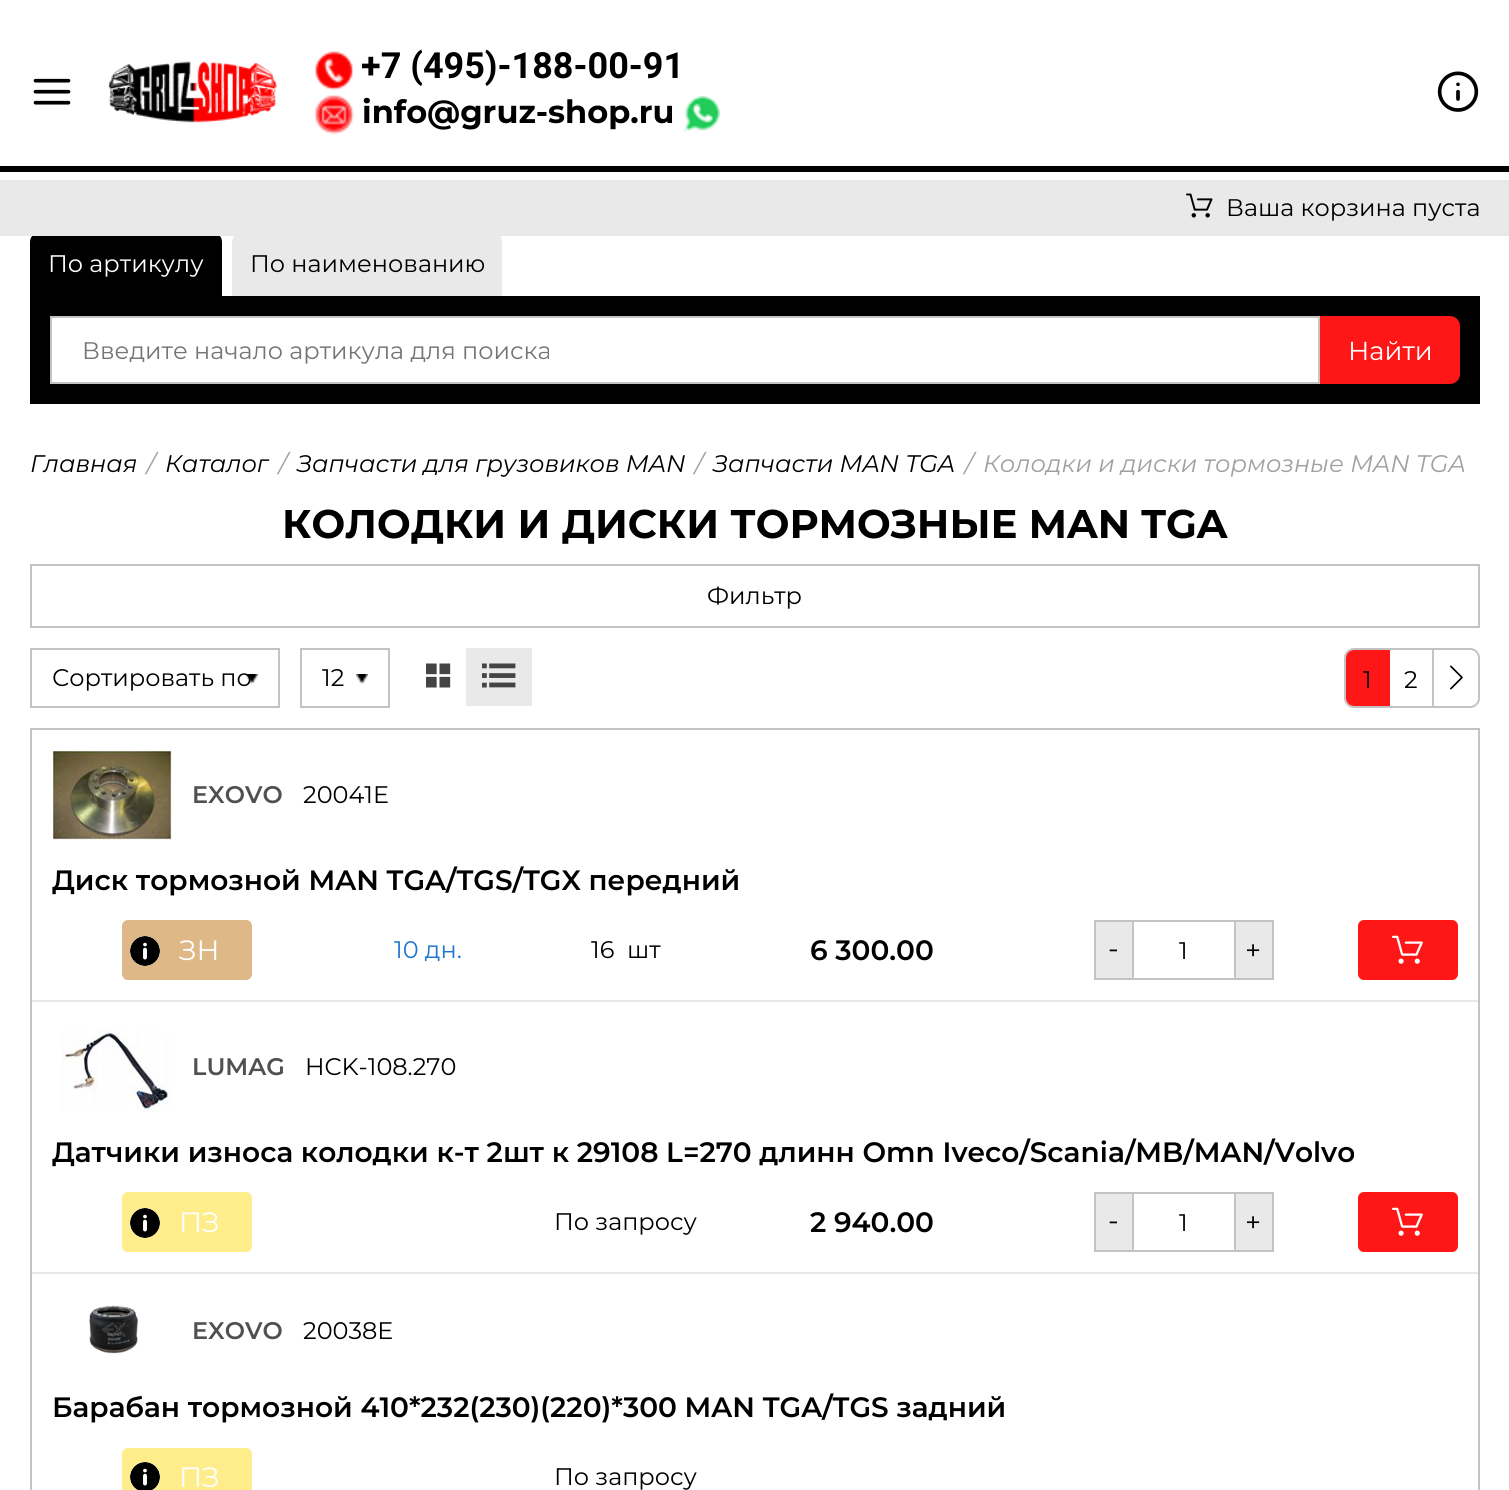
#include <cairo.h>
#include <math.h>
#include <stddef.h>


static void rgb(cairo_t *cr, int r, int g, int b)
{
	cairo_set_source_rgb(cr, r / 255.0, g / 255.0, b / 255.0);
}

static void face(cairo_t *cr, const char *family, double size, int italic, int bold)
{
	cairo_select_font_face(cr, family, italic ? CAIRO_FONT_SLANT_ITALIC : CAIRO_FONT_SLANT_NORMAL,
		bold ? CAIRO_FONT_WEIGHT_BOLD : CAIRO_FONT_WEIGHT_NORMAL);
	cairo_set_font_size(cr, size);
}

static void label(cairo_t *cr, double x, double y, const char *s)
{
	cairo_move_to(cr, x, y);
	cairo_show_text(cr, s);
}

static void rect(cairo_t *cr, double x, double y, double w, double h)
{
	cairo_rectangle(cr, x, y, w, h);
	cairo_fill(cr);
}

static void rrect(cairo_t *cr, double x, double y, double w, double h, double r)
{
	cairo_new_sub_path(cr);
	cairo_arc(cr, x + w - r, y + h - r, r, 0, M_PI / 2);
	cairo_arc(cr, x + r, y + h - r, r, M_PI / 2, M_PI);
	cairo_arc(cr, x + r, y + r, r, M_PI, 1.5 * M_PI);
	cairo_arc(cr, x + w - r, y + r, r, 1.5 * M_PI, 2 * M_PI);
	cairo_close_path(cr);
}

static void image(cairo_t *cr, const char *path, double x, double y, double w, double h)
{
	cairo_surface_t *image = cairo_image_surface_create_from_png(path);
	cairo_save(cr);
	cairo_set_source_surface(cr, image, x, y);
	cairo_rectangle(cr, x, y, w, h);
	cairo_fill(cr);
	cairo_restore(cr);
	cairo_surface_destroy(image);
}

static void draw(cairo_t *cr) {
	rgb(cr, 255, 255, 255);
	cairo_paint(cr);
	rgb(cr, 0, 0, 0);
	rect(cr, 0, 166, 1509, 6);
	image(cr, "image0.png", 33, 78, 38, 27);
	image(cr, "image1.png", 108, 61, 169, 62);
	image(cr, "image2.png", 315, 51, 39, 39);
	face(cr, "Roboto", 36, 0, 1);
	label(cr, 361, 78, "+7 (495)-188-00-91");
	image(cr, "image3.png", 314, 95, 40, 40);
	face(cr, "Montserrat", 32, 0, 1);
	label(cr, 362, 123, "info@gruz-shop.ru");
	image(cr, "image4.png", 684, 96, 36, 36);
	image(cr, "image5.png", 1437, 71, 42, 41);
	cairo_new_path(cr);
	cairo_move_to(cr, 40, 232);
	cairo_line_to(cr, 212, 232);
	cairo_curve_to(cr, 217.5, 232, 222, 236.5, 222, 242);
	cairo_line_to(cr, 222, 296);
	cairo_line_to(cr, 30, 296);
	cairo_line_to(cr, 30, 242);
	cairo_curve_to(cr, 30, 236.5, 34.5, 232, 40, 232);
	cairo_close_path(cr);
	cairo_fill(cr);
	rgb(cr, 233, 233, 233);
	cairo_new_path(cr);
	cairo_move_to(cr, 242, 232);
	cairo_line_to(cr, 492, 232);
	cairo_curve_to(cr, 497.5, 232, 502, 236.5, 502, 242);
	cairo_line_to(cr, 502, 296);
	cairo_line_to(cr, 232, 296);
	cairo_line_to(cr, 232, 242);
	cairo_curve_to(cr, 232, 236.5, 236.5, 232, 242, 232);
	cairo_close_path(cr);
	cairo_fill(cr);
	rect(cr, 0, 180, 1509, 56);
	image(cr, "image6.png", 1186, 193, 27, 25);
	face(cr, "Montserrat", 24, 0, 0);
	rgb(cr, 0, 0, 0);
	label(cr, 1226, 216, "Ваша корзина пуста");
	rgb(cr, 255, 255, 255);
	label(cr, 48, 272, "По артикулу");
	rgb(cr, 0, 0, 0);
	label(cr, 250, 272, "По наименованию");
	rect(cr, 30, 296, 1450, 108);
	rgb(cr, 255, 255, 255);
	cairo_rectangle(cr, 51, 317, 1268, 66);
	cairo_fill_preserve(cr);
	rgb(cr, 195, 195, 195);
	cairo_stroke(cr);
	rgb(cr, 117, 117, 117);
	label(cr, 82, 359, "Введите начало артикула для поиска");
	rgb(cr, 255, 22, 22);
	cairo_new_path(cr);
	cairo_move_to(cr, 1320, 316);
	cairo_line_to(cr, 1450, 316);
	cairo_curve_to(cr, 1455.5, 316, 1460, 320.5, 1460, 326);
	cairo_line_to(cr, 1460, 374);
	cairo_curve_to(cr, 1460, 379.5, 1455.5, 384, 1450, 384);
	cairo_line_to(cr, 1320, 384);
	cairo_close_path(cr);
	cairo_fill(cr);
	face(cr, "Montserrat", 26, 0, 0);
	rgb(cr, 255, 255, 255);
	label(cr, 1348, 360, "Найти");
	face(cr, "Montserrat", 24, 1, 0);
	rgb(cr, 0, 0, 0);
	label(cr, 30, 472, "Главная");
	rgb(cr, 160, 160, 160);
	label(cr, 147, 472, "/");
	rgb(cr, 0, 0, 0);
	label(cr, 165, 472, "Каталог");
	rgb(cr, 160, 160, 160);
	label(cr, 279, 472, "/");
	rgb(cr, 0, 0, 0);
	label(cr, 297, 472, "Запчасти для грузовиков MAN");
	rgb(cr, 160, 160, 160);
	label(cr, 695, 472, "/");
	rgb(cr, 0, 0, 0);
	label(cr, 713, 472, "Запчасти MAN TGA");
	rgb(cr, 160, 160, 160);
	label(cr, 965, 472, "/");
	label(cr, 983, 472, "Колодки и диски тормозные MAN TGA");
	face(cr, "Montserrat", 40, 0, 1);
	rgb(cr, 0, 0, 0);
	label(cr, 282, 538, "КОЛОДКИ И ДИСКИ ТОРМОЗНЫЕ MAN TGA");
	cairo_rectangle(cr, 31, 565, 1448, 62);
	rgb(cr, 195, 195, 195);
	cairo_stroke(cr);
	face(cr, "Montserrat", 24, 0, 0);
	rgb(cr, 0, 0, 0);
	label(cr, 707, 604, "Фильтр");
	image(cr, "image7.png", 246, 674, 12, 10);
	cairo_rectangle(cr, 31, 649, 248, 58);
	rgb(cr, 195, 195, 195);
	cairo_stroke(cr);
	rgb(cr, 0, 0, 0);
	label(cr, 52, 686, "Сортировать по");
	image(cr, "image7.png", 356, 674, 12, 10);
	cairo_rectangle(cr, 301, 649, 88, 58);
	rgb(cr, 195, 195, 195);
	cairo_stroke(cr);
	rgb(cr, 0, 0, 0);
	label(cr, 322, 686, "12");
	image(cr, "image8.png", 426, 663, 25, 25);
	rgb(cr, 233, 233, 233);
	rect(cr, 466, 648, 66, 58);
	image(cr, "image9.png", 482, 663, 34, 25);
	rrect(cr, 1345, 649, 134, 58, 9);
	rgb(cr, 195, 195, 195);
	cairo_stroke(cr);
	rgb(cr, 255, 22, 22);
	cairo_new_path(cr);
	cairo_move_to(cr, 1354, 650);
	cairo_line_to(cr, 1390, 650);
	cairo_line_to(cr, 1390, 706);
	cairo_line_to(cr, 1354, 706);
	cairo_curve_to(cr, 1349.5, 706, 1346, 702.5, 1346, 698);
	cairo_line_to(cr, 1346, 658);
	cairo_curve_to(cr, 1346, 653.5, 1349.5, 650, 1354, 650);
	cairo_close_path(cr);
	cairo_fill(cr);
	rgb(cr, 0, 0, 0);
	label(cr, 1363, 688, "1");
	rgb(cr, 195, 195, 195);
	rect(cr, 1432, 650, 2, 56);
	rgb(cr, 0, 0, 0);
	label(cr, 1404, 688, "2");
	image(cr, "image10.png", 1450, 665, 13, 25);
	rgb(cr, 195, 195, 195);
	rect(cr, 30, 728, 1450, 2);
	rect(cr, 1478, 728, 2, 762);
	rect(cr, 30, 728, 2, 762);
	rgb(cr, 231, 231, 231);
	rect(cr, 32, 1000, 1446, 2);
	image(cr, "image11.png", 52, 750, 120, 90);
	face(cr, "Montserrat SemiBold", 24, 0, 0);
	rgb(cr, 80, 80, 80);
	label(cr, 192, 803, "EXOVO");
	face(cr, "Montserrat", 24, 0, 0);
	rgb(cr, 0, 0, 0);
	label(cr, 303, 803, "20041E");
	face(cr, "Montserrat SemiBold", 28, 0, 0);
	label(cr, 52, 890, "Диск тормозной MAN TGA/TGS/TGX передний");
	rgb(cr, 222, 184, 135);
	rrect(cr, 122, 920, 130, 60, 6);
	cairo_fill(cr);
	rgb(cr, 255, 255, 255);
	cairo_arc(cr, 145, 951, 15, 0, 2 * M_PI);
	cairo_fill(cr);
	image(cr, "image12.png", 130, 936, 30, 30);
	face(cr, "Montserrat", 28, 0, 0);
	label(cr, 179, 960, "ЗН");
	face(cr, "Montserrat", 24, 0, 0);
	rgb(cr, 30, 118, 208);
	label(cr, 394, 958, "10 дн.");
	rgb(cr, 0, 0, 0);
	label(cr, 591, 958, "16");
	label(cr, 627, 958, "шт");
	face(cr, "Montserrat SemiBold", 28, 0, 0);
	label(cr, 810, 960, "6 300.00");
	cairo_rectangle(cr, 1095, 921, 178, 58);
	rgb(cr, 195, 195, 195);
	cairo_stroke(cr);
	rgb(cr, 233, 233, 233);
	cairo_rectangle(cr, 1095, 921, 38, 58);
	cairo_fill_preserve(cr);
	rgb(cr, 195, 195, 195);
	cairo_stroke(cr);
	face(cr, "Montserrat", 28, 0, 0);
	rgb(cr, 0, 0, 0);
	label(cr, 1108, 958, "-");
	face(cr, "Montserrat", 24, 0, 0);
	label(cr, 1179, 959, "1");
	rgb(cr, 233, 233, 233);
	cairo_rectangle(cr, 1235, 921, 38, 58);
	cairo_fill_preserve(cr);
	rgb(cr, 195, 195, 195);
	cairo_stroke(cr);
	face(cr, "Montserrat", 28, 0, 0);
	rgb(cr, 0, 0, 0);
	label(cr, 1245, 960, "+");
	rgb(cr, 255, 22, 22);
	rrect(cr, 1358, 920, 100, 60, 6);
	cairo_fill(cr);
	image(cr, "image13.png", 1392, 935, 31, 29);
	rgb(cr, 231, 231, 231);
	rect(cr, 32, 1272, 1446, 2);
	image(cr, "image14.png", 62, 1030, 110, 82);
	face(cr, "Montserrat SemiBold", 24, 0, 0);
	rgb(cr, 80, 80, 80);
	label(cr, 192, 1075, "LUMAG");
	face(cr, "Montserrat", 24, 0, 0);
	rgb(cr, 0, 0, 0);
	label(cr, 305, 1075, "HCK-108.270");
	face(cr, "Montserrat SemiBold", 28, 0, 0);
	label(cr, 52, 1162, "Датчики износа колодки к-т 2шт к 29108 L=270 длинн Omn Iveco/Scania/MB/MAN/Volvo");
	rgb(cr, 255, 236, 139);
	rrect(cr, 122, 1192, 130, 60, 6);
	cairo_fill(cr);
	rgb(cr, 255, 255, 255);
	cairo_arc(cr, 145, 1223, 15, 0, 2 * M_PI);
	cairo_fill(cr);
	image(cr, "image15.png", 130, 1208, 30, 30);
	face(cr, "Montserrat", 28, 0, 0);
	label(cr, 179, 1232, "ПЗ");
	face(cr, "Montserrat", 24, 0, 0);
	rgb(cr, 0, 0, 0);
	label(cr, 554, 1230, "По запросу");
	face(cr, "Montserrat SemiBold", 28, 0, 0);
	label(cr, 810, 1232, "2 940.00");
	cairo_rectangle(cr, 1095, 1193, 178, 58);
	rgb(cr, 195, 195, 195);
	cairo_stroke(cr);
	rgb(cr, 233, 233, 233);
	cairo_rectangle(cr, 1095, 1193, 38, 58);
	cairo_fill_preserve(cr);
	rgb(cr, 195, 195, 195);
	cairo_stroke(cr);
	face(cr, "Montserrat", 28, 0, 0);
	rgb(cr, 0, 0, 0);
	label(cr, 1108, 1230, "-");
	face(cr, "Montserrat", 24, 0, 0);
	label(cr, 1179, 1231, "1");
	rgb(cr, 233, 233, 233);
	cairo_rectangle(cr, 1235, 1193, 38, 58);
	cairo_fill_preserve(cr);
	rgb(cr, 195, 195, 195);
	cairo_stroke(cr);
	face(cr, "Montserrat", 28, 0, 0);
	rgb(cr, 0, 0, 0);
	label(cr, 1245, 1232, "+");
	rgb(cr, 255, 22, 22);
	rrect(cr, 1358, 1192, 100, 60, 6);
	cairo_fill(cr);
	image(cr, "image13.png", 1392, 1207, 31, 29);
	image(cr, "image16.png", 89, 1305, 50, 49);
	face(cr, "Montserrat SemiBold", 24, 0, 0);
	rgb(cr, 80, 80, 80);
	label(cr, 192, 1339, "EXOVO");
	face(cr, "Montserrat", 24, 0, 0);
	rgb(cr, 0, 0, 0);
	label(cr, 303, 1339, "20038E");
	face(cr, "Montserrat SemiBold", 28, 0, 0);
	label(cr, 52, 1417, "Барабан тормозной 410*232(230)(220)*300 MAN TGA/TGS задний");
	rgb(cr, 255, 236, 139);
	rrect(cr, 122, 1448, 130, 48, 6);
	cairo_fill(cr);
	rgb(cr, 255, 255, 255);
	cairo_arc(cr, 145, 1477, 15, 0, 2 * M_PI);
	cairo_fill(cr);
	image(cr, "image17.png", 130, 1462, 30, 28);
	face(cr, "Montserrat", 28, 0, 0);
	label(cr, 179, 1487, "ПЗ");
	face(cr, "Montserrat", 24, 0, 0);
	rgb(cr, 0, 0, 0);
	label(cr, 554, 1485, "По запросу");
}

int main(void) {
	cairo_surface_t *surface = cairo_image_surface_create(CAIRO_FORMAT_RGB24, 1509, 1490);
	cairo_t *cr = cairo_create(surface);
	cairo_font_options_t *options = cairo_font_options_create();
	cairo_font_options_set_hint_metrics(options, CAIRO_HINT_METRICS_OFF);
	cairo_font_options_set_hint_style(options, CAIRO_HINT_STYLE_NONE);
	cairo_set_font_options(cr, options);
	cairo_set_miter_limit(cr, 4);
	draw(cr);
	cairo_surface_write_to_png(surface, "render.png");
	cairo_font_options_destroy(options);
	cairo_destroy(cr);
	cairo_surface_destroy(surface);
	return 0;
}
